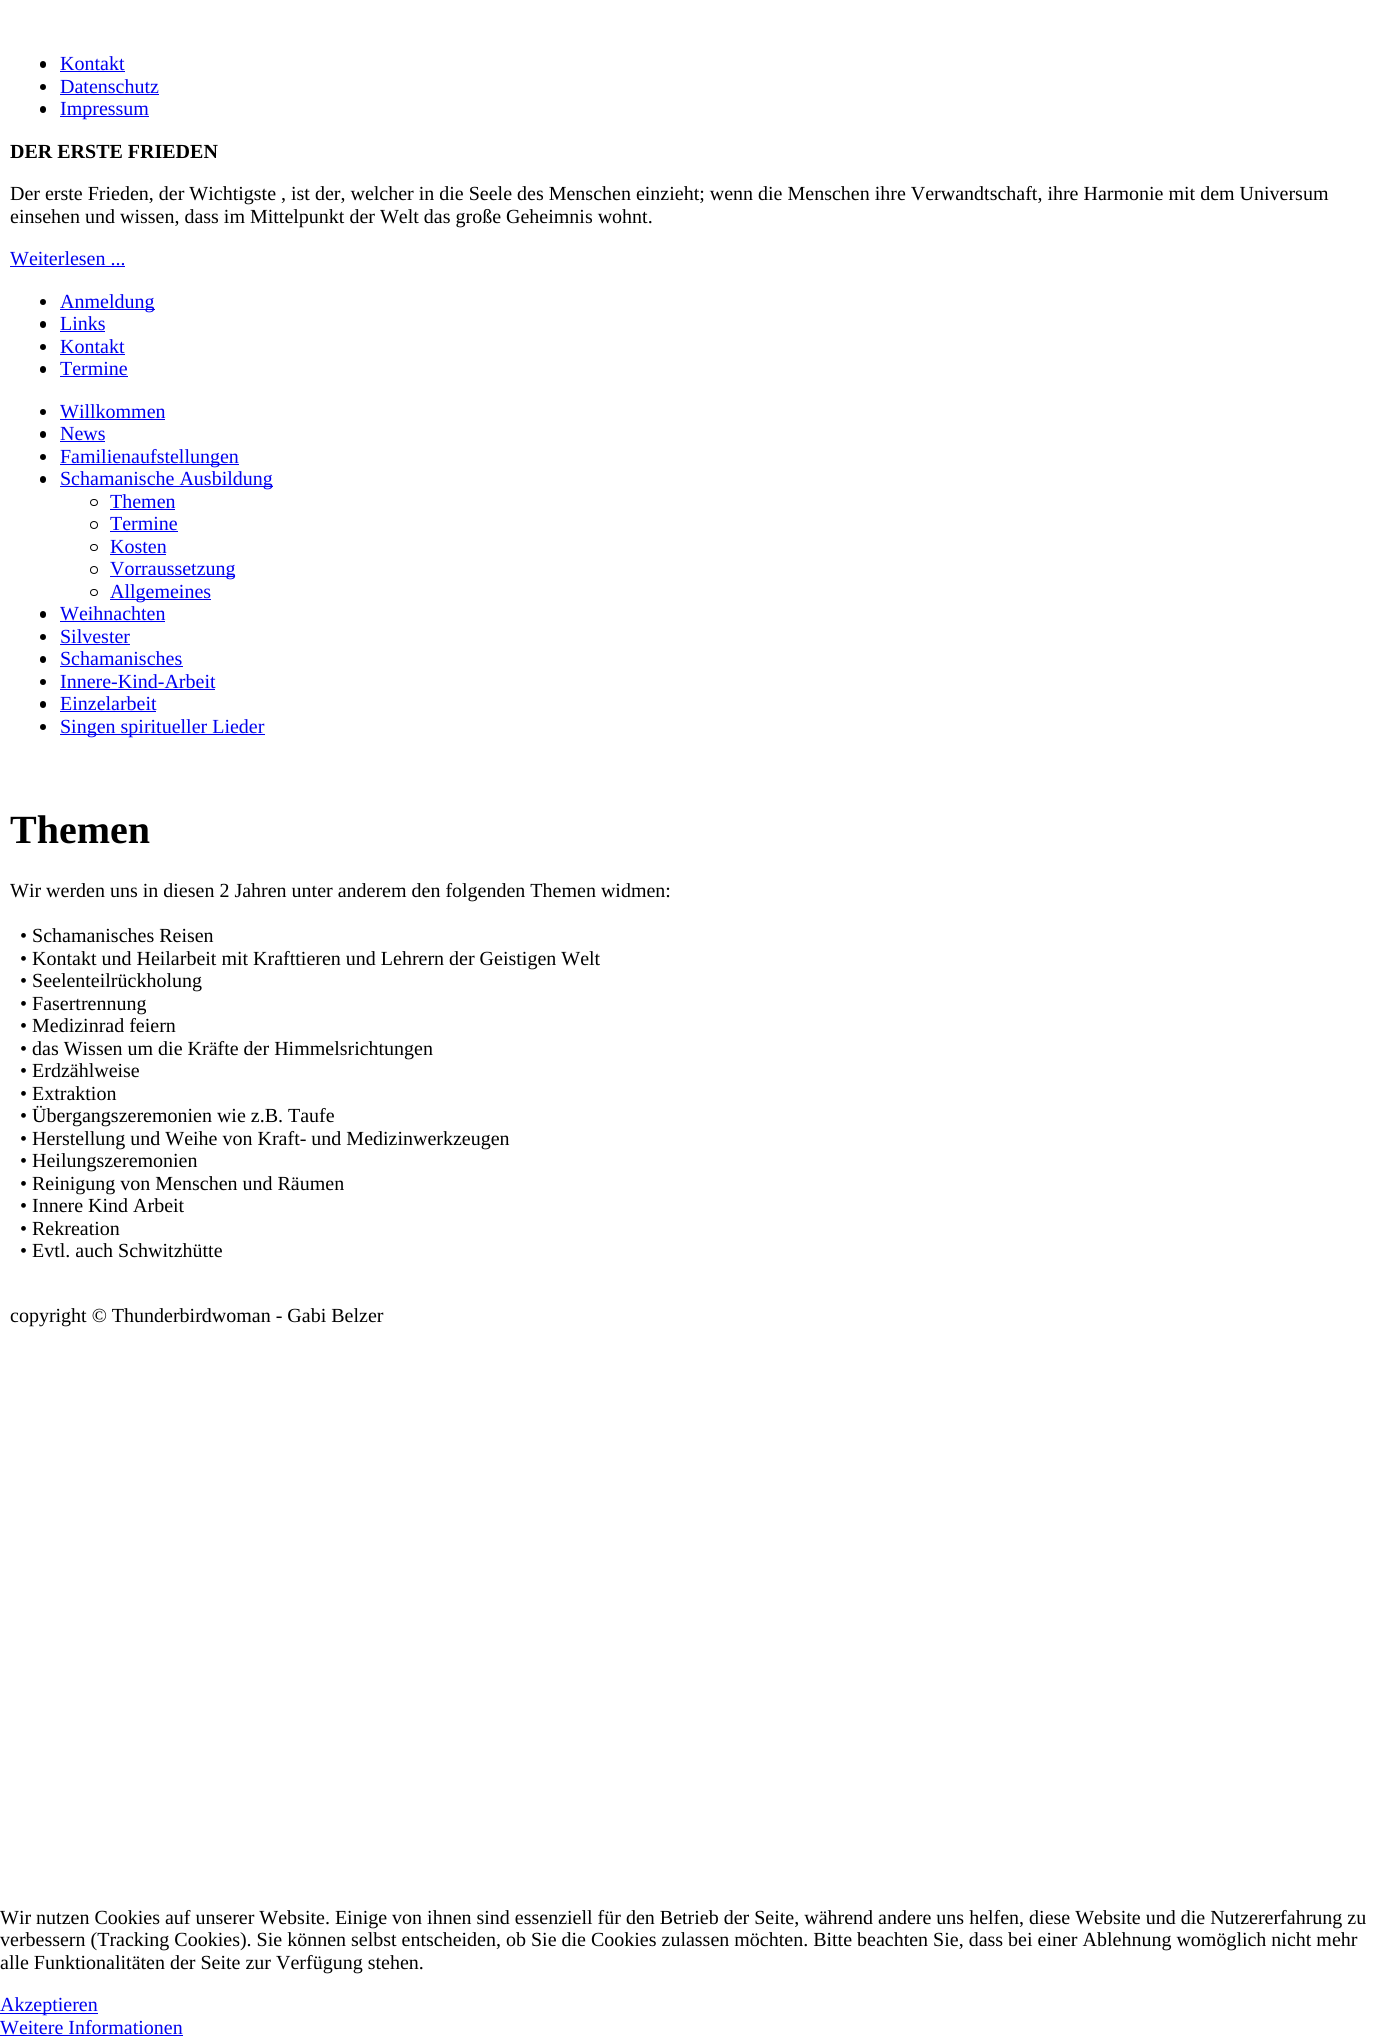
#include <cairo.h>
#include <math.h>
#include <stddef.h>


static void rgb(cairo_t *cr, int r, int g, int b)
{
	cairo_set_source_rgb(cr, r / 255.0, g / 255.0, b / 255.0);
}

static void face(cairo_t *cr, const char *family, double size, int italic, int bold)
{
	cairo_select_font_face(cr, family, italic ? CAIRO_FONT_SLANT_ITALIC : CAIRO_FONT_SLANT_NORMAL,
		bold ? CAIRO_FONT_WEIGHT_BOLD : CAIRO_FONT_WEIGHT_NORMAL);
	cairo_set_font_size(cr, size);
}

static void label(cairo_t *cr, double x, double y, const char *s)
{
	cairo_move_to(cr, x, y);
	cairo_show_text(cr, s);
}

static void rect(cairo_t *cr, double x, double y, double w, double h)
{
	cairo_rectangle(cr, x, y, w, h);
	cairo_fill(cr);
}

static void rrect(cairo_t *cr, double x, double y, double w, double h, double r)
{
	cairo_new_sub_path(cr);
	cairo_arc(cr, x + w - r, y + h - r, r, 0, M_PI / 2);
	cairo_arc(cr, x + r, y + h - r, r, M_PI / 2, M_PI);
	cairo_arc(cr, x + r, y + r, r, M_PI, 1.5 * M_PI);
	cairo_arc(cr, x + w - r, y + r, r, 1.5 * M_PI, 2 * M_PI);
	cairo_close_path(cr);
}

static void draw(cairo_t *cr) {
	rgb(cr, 255, 255, 255);
	cairo_paint(cr);
	rgb(cr, 0, 0, 0);
	rrect(cr, 40, 61, 6, 7, 3);
	cairo_fill(cr);
	face(cr, "Liberation Serif", 20, 0, 0);
	rgb(cr, 0, 0, 238);
	label(cr, 60, 70, "Kontakt");
	rect(cr, 60, 71, 65, 1);
	rgb(cr, 0, 0, 0);
	cairo_new_path(cr);
	cairo_arc(cr, 43, 87, 3, 0, 2 * M_PI);
	cairo_fill(cr);
	rgb(cr, 0, 0, 238);
	label(cr, 60, 93, "Datenschutz");
	rect(cr, 60, 94, 99, 1);
	rgb(cr, 0, 0, 0);
	rrect(cr, 40, 106, 6, 7, 3);
	cairo_fill(cr);
	rgb(cr, 0, 0, 238);
	rect(cr, 60, 116, 89, 1);
	label(cr, 60, 115, "Impressum");
	face(cr, "Liberation Serif", 20, 0, 1);
	rgb(cr, 0, 0, 0);
	label(cr, 10, 158, "DER ERSTE FRIEDEN");
	face(cr, "Liberation Serif", 20, 0, 0);
	label(cr, 10, 200, "Der erste Frieden, der Wichtigste , ist der, welcher in die Seele des Menschen einzieht; wenn die Menschen ihre Verwandtschaft, ihre Harmonie mit dem Universum");
	label(cr, 10, 223, "einsehen und wissen, dass im Mittelpunkt der Welt das große Geheimnis wohnt.");
	rgb(cr, 0, 0, 238);
	label(cr, 10, 265, "Weiterlesen ...");
	rect(cr, 10, 266, 115, 1);
	rgb(cr, 0, 0, 0);
	cairo_new_path(cr);
	cairo_arc(cr, 43, 302, 3, 0, 2 * M_PI);
	cairo_fill(cr);
	rgb(cr, 0, 0, 238);
	rect(cr, 60, 309, 95, 1);
	label(cr, 60, 308, "Anmeldung");
	rgb(cr, 0, 0, 0);
	rrect(cr, 40, 321, 6, 7, 3);
	cairo_fill(cr);
	rgb(cr, 0, 0, 238);
	label(cr, 60, 330, "Links");
	rect(cr, 60, 331, 45, 1);
	rgb(cr, 0, 0, 0);
	cairo_new_path(cr);
	cairo_arc(cr, 43, 347, 3, 0, 2 * M_PI);
	cairo_fill(cr);
	rgb(cr, 0, 0, 238);
	label(cr, 60, 353, "Kontakt");
	rect(cr, 60, 354, 65, 1);
	rgb(cr, 0, 0, 0);
	rrect(cr, 40, 366, 6, 7, 3);
	cairo_fill(cr);
	rgb(cr, 0, 0, 238);
	label(cr, 60, 375, "Termine");
	rect(cr, 60, 376, 68, 1);
	rgb(cr, 0, 0, 0);
	cairo_new_path(cr);
	cairo_arc(cr, 43, 412, 3, 0, 2 * M_PI);
	cairo_fill(cr);
	rgb(cr, 0, 0, 238);
	label(cr, 60, 418, "Willkommen");
	rect(cr, 60, 419, 105, 1);
	rgb(cr, 0, 0, 0);
	rrect(cr, 40, 431, 6, 7, 3);
	cairo_fill(cr);
	rgb(cr, 0, 0, 238);
	label(cr, 60, 440, "News");
	rect(cr, 60, 441, 45, 1);
	rgb(cr, 0, 0, 0);
	cairo_new_path(cr);
	cairo_arc(cr, 43, 457, 3, 0, 2 * M_PI);
	cairo_fill(cr);
	rgb(cr, 0, 0, 238);
	rect(cr, 60, 464, 179, 1);
	label(cr, 60, 463, "Familienaufstellungen");
	rgb(cr, 0, 0, 0);
	rrect(cr, 40, 476, 6, 7, 3);
	cairo_fill(cr);
	rgb(cr, 0, 0, 238);
	rect(cr, 60, 486, 213, 1);
	label(cr, 60, 485, "Schamanische Ausbildung");
	rrect(cr, 90.5, 499.5, 7, 6, 3);
	rgb(cr, 0, 0, 0);
	cairo_set_line_width(cr, 1);
	cairo_stroke(cr);
	rgb(cr, 0, 0, 238);
	label(cr, 110, 508, "Themen");
	rect(cr, 110, 509, 65, 1);
	cairo_new_path(cr);
	cairo_arc(cr, 94, 525, 3.5, 0, 2 * M_PI);
	rgb(cr, 0, 0, 0);
	cairo_stroke(cr);
	rgb(cr, 0, 0, 238);
	label(cr, 110, 530, "Termine");
	rect(cr, 110, 531, 68, 1);
	rrect(cr, 90.5, 544.5, 7, 6, 3);
	rgb(cr, 0, 0, 0);
	cairo_stroke(cr);
	rgb(cr, 0, 0, 238);
	label(cr, 110, 553, "Kosten");
	rect(cr, 110, 554, 56, 1);
	cairo_new_path(cr);
	cairo_arc(cr, 94, 570, 3.5, 0, 2 * M_PI);
	rgb(cr, 0, 0, 0);
	cairo_stroke(cr);
	rgb(cr, 0, 0, 238);
	rect(cr, 110, 576, 125, 1);
	label(cr, 110, 575, "Vorraussetzung");
	rrect(cr, 90.5, 589.5, 7, 6, 3);
	rgb(cr, 0, 0, 0);
	cairo_stroke(cr);
	rgb(cr, 0, 0, 238);
	rect(cr, 110, 599, 101, 1);
	label(cr, 110, 598, "Allgemeines");
	rgb(cr, 0, 0, 0);
	rrect(cr, 40, 611, 6, 7, 3);
	cairo_fill(cr);
	rgb(cr, 0, 0, 238);
	label(cr, 60, 620, "Weihnachten");
	rect(cr, 60, 621, 105, 1);
	rgb(cr, 0, 0, 0);
	cairo_new_path(cr);
	cairo_arc(cr, 43, 637, 3, 0, 2 * M_PI);
	cairo_fill(cr);
	rgb(cr, 0, 0, 238);
	label(cr, 60, 643, "Silvester");
	rect(cr, 60, 644, 70, 1);
	rgb(cr, 0, 0, 0);
	rrect(cr, 40, 656, 6, 7, 3);
	cairo_fill(cr);
	rgb(cr, 0, 0, 238);
	label(cr, 60, 665, "Schamanisches");
	rect(cr, 60, 666, 123, 1);
	rgb(cr, 0, 0, 0);
	cairo_new_path(cr);
	cairo_arc(cr, 43, 682, 3, 0, 2 * M_PI);
	cairo_fill(cr);
	rgb(cr, 0, 0, 238);
	label(cr, 60, 688, "Innere-Kind-Arbeit");
	rect(cr, 60, 689, 155, 1);
	rgb(cr, 0, 0, 0);
	rrect(cr, 40, 701, 6, 7, 3);
	cairo_fill(cr);
	rgb(cr, 0, 0, 238);
	label(cr, 60, 710, "Einzelarbeit");
	rect(cr, 60, 711, 96, 1);
	rgb(cr, 0, 0, 0);
	cairo_new_path(cr);
	cairo_arc(cr, 43, 727, 3, 0, 2 * M_PI);
	cairo_fill(cr);
	rgb(cr, 0, 0, 238);
	rect(cr, 60, 734, 205, 1);
	label(cr, 60, 733, "Singen spiritueller Lieder");
	face(cr, "Liberation Serif", 40, 0, 1);
	rgb(cr, 0, 0, 0);
	label(cr, 10, 843, "Themen");
	face(cr, "Liberation Serif", 20, 0, 0);
	label(cr, 10, 897, "Wir werden uns in diesen 2 Jahren unter anderem den folgenden Themen widmen:");
	label(cr, 20, 942, "• Schamanisches Reisen");
	label(cr, 20, 965, "• Kontakt und Heilarbeit mit Krafttieren und Lehrern der Geistigen Welt");
	label(cr, 20, 987, "• Seelenteilrückholung");
	label(cr, 20, 1010, "• Fasertrennung");
	label(cr, 20, 1032, "• Medizinrad feiern");
	label(cr, 20, 1055, "• das Wissen um die Kräfte der Himmelsrichtungen");
	label(cr, 20, 1077, "• Erdzählweise");
	label(cr, 20, 1100, "• Extraktion");
	label(cr, 20, 1122, "• Übergangszeremonien wie z.B. Taufe");
	label(cr, 20, 1145, "• Herstellung und Weihe von Kraft- und Medizinwerkzeugen");
	label(cr, 20, 1167, "• Heilungszeremonien");
	label(cr, 20, 1190, "• Reinigung von Menschen und Räumen");
	label(cr, 20, 1212, "• Innere Kind Arbeit");
	label(cr, 20, 1235, "• Rekreation");
	label(cr, 20, 1257, "• Evtl. auch Schwitzhütte");
	label(cr, 10, 1322, "copyright © Thunderbirdwoman - Gabi Belzer");
	label(cr, 0, 1924, "Wir nutzen Cookies auf unserer Website. Einige von ihnen sind essenziell für den Betrieb der Seite, während andere uns helfen, diese Website und die Nutzererfahrung zu");
	label(cr, 0, 1946, "verbessern (Tracking Cookies). Sie können selbst entscheiden, ob Sie die Cookies zulassen möchten. Bitte beachten Sie, dass bei einer Ablehnung womöglich nicht mehr");
	label(cr, 0, 1969, "alle Funktionalitäten der Seite zur Verfügung stehen.");
	rgb(cr, 0, 0, 238);
	rect(cr, 0, 2013, 98, 1);
	label(cr, 0, 2011, "Akzeptieren");
	label(cr, 0, 2034, "Weitere Informationen");
	rect(cr, 0, 2035, 183, 1);
}

int main(void) {
	cairo_surface_t *surface = cairo_image_surface_create(CAIRO_FORMAT_RGB24, 1389, 2038);
	cairo_t *cr = cairo_create(surface);
	cairo_font_options_t *options = cairo_font_options_create();
	cairo_font_options_set_hint_metrics(options, CAIRO_HINT_METRICS_OFF);
	cairo_font_options_set_hint_style(options, CAIRO_HINT_STYLE_NONE);
	cairo_set_font_options(cr, options);
	cairo_set_miter_limit(cr, 4);
	draw(cr);
	cairo_surface_write_to_png(surface, "render.png");
	cairo_font_options_destroy(options);
	cairo_destroy(cr);
	cairo_surface_destroy(surface);
	return 0;
}
